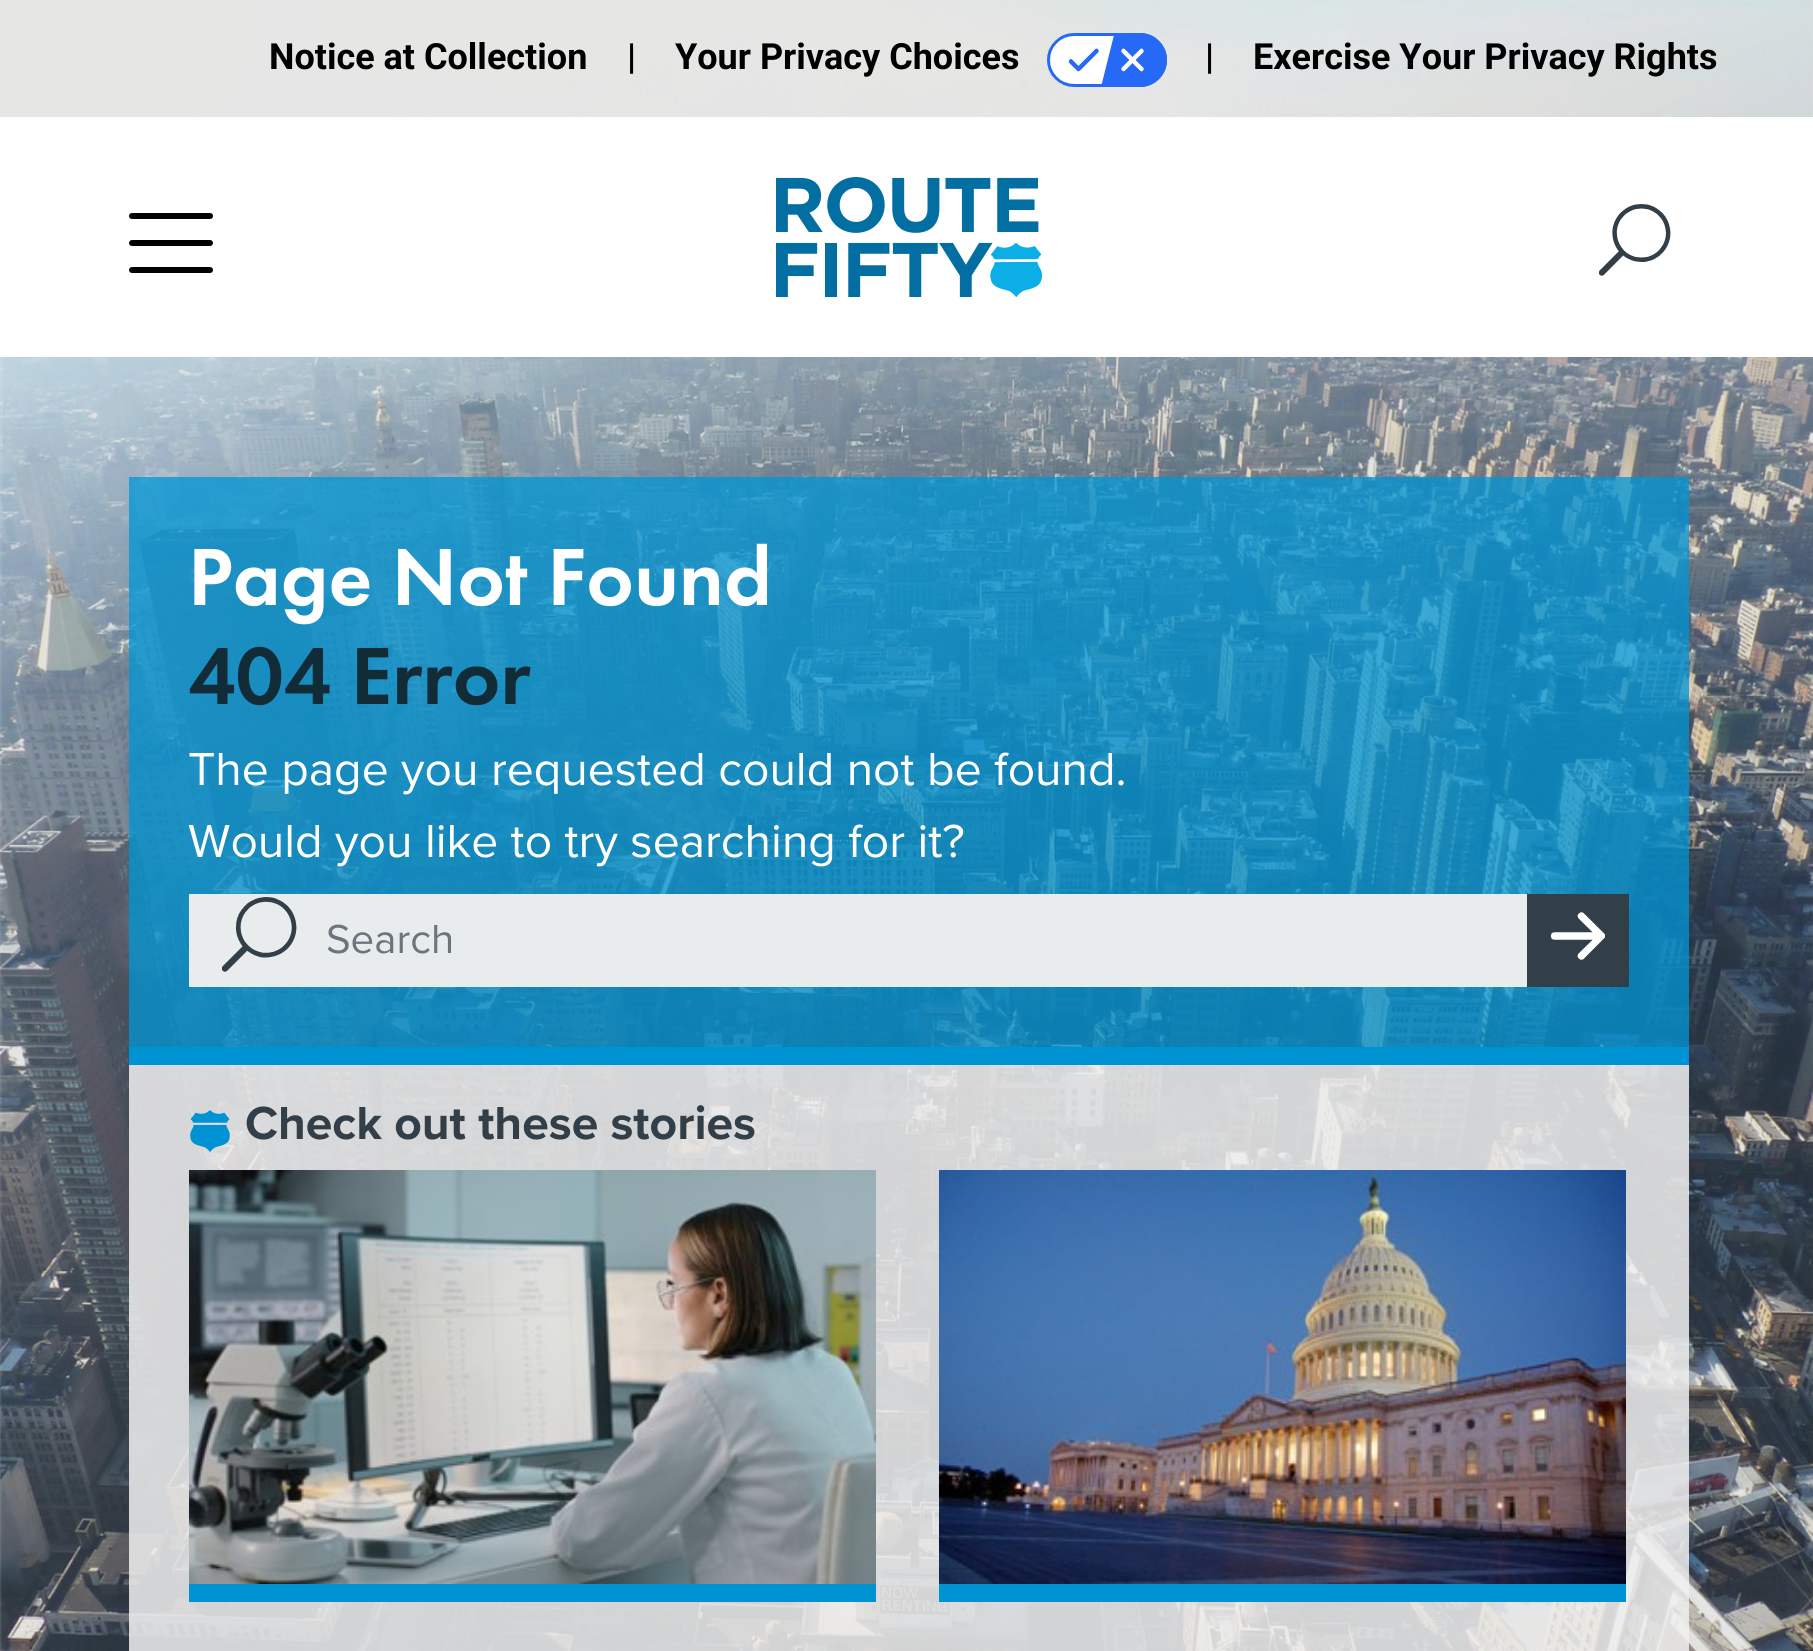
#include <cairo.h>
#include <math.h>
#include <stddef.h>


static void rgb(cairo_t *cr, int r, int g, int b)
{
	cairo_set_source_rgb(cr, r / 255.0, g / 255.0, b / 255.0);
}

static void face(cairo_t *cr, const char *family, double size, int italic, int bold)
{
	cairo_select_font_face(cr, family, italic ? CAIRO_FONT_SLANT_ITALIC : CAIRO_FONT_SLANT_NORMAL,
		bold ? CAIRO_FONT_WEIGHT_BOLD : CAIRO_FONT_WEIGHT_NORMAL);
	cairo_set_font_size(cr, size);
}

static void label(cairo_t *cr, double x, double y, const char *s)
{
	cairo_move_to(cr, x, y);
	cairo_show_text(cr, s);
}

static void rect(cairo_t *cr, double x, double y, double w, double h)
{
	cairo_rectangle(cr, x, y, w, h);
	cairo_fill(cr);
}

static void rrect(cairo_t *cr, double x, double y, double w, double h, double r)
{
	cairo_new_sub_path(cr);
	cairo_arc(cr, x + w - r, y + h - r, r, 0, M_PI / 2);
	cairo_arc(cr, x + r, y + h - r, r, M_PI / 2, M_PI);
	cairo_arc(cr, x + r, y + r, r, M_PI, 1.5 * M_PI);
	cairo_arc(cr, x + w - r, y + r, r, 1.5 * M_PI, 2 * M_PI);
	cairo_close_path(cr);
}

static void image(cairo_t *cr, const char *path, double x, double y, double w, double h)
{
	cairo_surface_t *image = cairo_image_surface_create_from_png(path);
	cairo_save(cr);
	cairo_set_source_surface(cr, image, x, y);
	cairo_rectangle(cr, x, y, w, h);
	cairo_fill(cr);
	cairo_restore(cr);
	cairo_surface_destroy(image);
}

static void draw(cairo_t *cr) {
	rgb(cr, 255, 255, 255);
	cairo_paint(cr);
	image(cr, "image0.png", 0, 0, 1813, 1651);
	face(cr, "Roboto", 36, 0, 1);
	rgb(cr, 0, 0, 0);
	label(cr, 269, 69, "Notice at Collection");
	label(cr, 627, 69, "|");
	label(cr, 675, 69, "Your Privacy Choices");
	image(cr, "image1.png", 1047, 33, 120, 54);
	label(cr, 1205, 69, "|");
	label(cr, 1253, 69, "Exercise Your Privacy Rights");
	rgb(cr, 255, 255, 255);
	rect(cr, 0, 117, 1813, 240);
	rgb(cr, 0, 0, 0);
	rrect(cr, 129, 240, 84, 6, 3);
	cairo_fill(cr);
	rrect(cr, 129, 213, 84, 6, 3);
	cairo_fill(cr);
	rrect(cr, 129, 267, 84, 6, 3);
	cairo_fill(cr);
	image(cr, "image2.png", 776, 177, 266, 120);
	image(cr, "image3.png", 1599, 204, 72, 72);
	cairo_set_source_rgba(cr, 0, 0.588, 0.835, 0.75);
	rect(cr, 129, 477, 1560, 570);
	rgb(cr, 0, 147, 211);
	rect(cr, 129, 1047, 1560, 18);
	face(cr, "Futura PT Medium", 84, 0, 0);
	rgb(cr, 255, 255, 255);
	label(cr, 188, 605, "Page Not Found");
	rgb(cr, 18, 44, 55);
	label(cr, 188, 704, "404 Error");
	face(cr, "Proxima Nova", 48, 0, 0);
	rgb(cr, 255, 255, 255);
	label(cr, 188, 785, "The page you requested could not be found.");
	label(cr, 188, 857, "Would you like to try searching for it?");
	rgb(cr, 232, 236, 237);
	rect(cr, 189, 894, 1338, 93);
	image(cr, "image4.png", 222, 897, 75, 75);
	face(cr, "Proxima Nova", 42, 0, 0);
	rgb(cr, 108, 117, 125);
	label(cr, 326, 953, "Search");
	rgb(cr, 51, 63, 72);
	rect(cr, 1527, 894, 102, 93);
	image(cr, "image5.png", 1551, 912, 54, 48);
	cairo_set_source_rgba(cr, 0.941, 0.941, 0.941, 0.85);
	rect(cr, 129, 1065, 1560, 586);
	image(cr, "image6.png", 190, 1110, 40, 42);
	face(cr, "Proxima Nova", 48, 0, 1);
	rgb(cr, 51, 63, 72);
	label(cr, 245, 1139, "Check out these stories");
	image(cr, "image7.png", 189, 1170, 687, 414);
	rgb(cr, 0, 147, 211);
	rect(cr, 189, 1584, 687, 18);
	image(cr, "image8.png", 939, 1170, 687, 414);
	rect(cr, 939, 1584, 687, 18);
}

int main(void) {
	cairo_surface_t *surface = cairo_image_surface_create(CAIRO_FORMAT_RGB24, 1813, 1651);
	cairo_t *cr = cairo_create(surface);
	cairo_font_options_t *options = cairo_font_options_create();
	cairo_font_options_set_hint_metrics(options, CAIRO_HINT_METRICS_OFF);
	cairo_font_options_set_hint_style(options, CAIRO_HINT_STYLE_NONE);
	cairo_set_font_options(cr, options);
	cairo_set_miter_limit(cr, 4);
	draw(cr);
	cairo_surface_write_to_png(surface, "render.png");
	cairo_font_options_destroy(options);
	cairo_destroy(cr);
	cairo_surface_destroy(surface);
	return 0;
}
